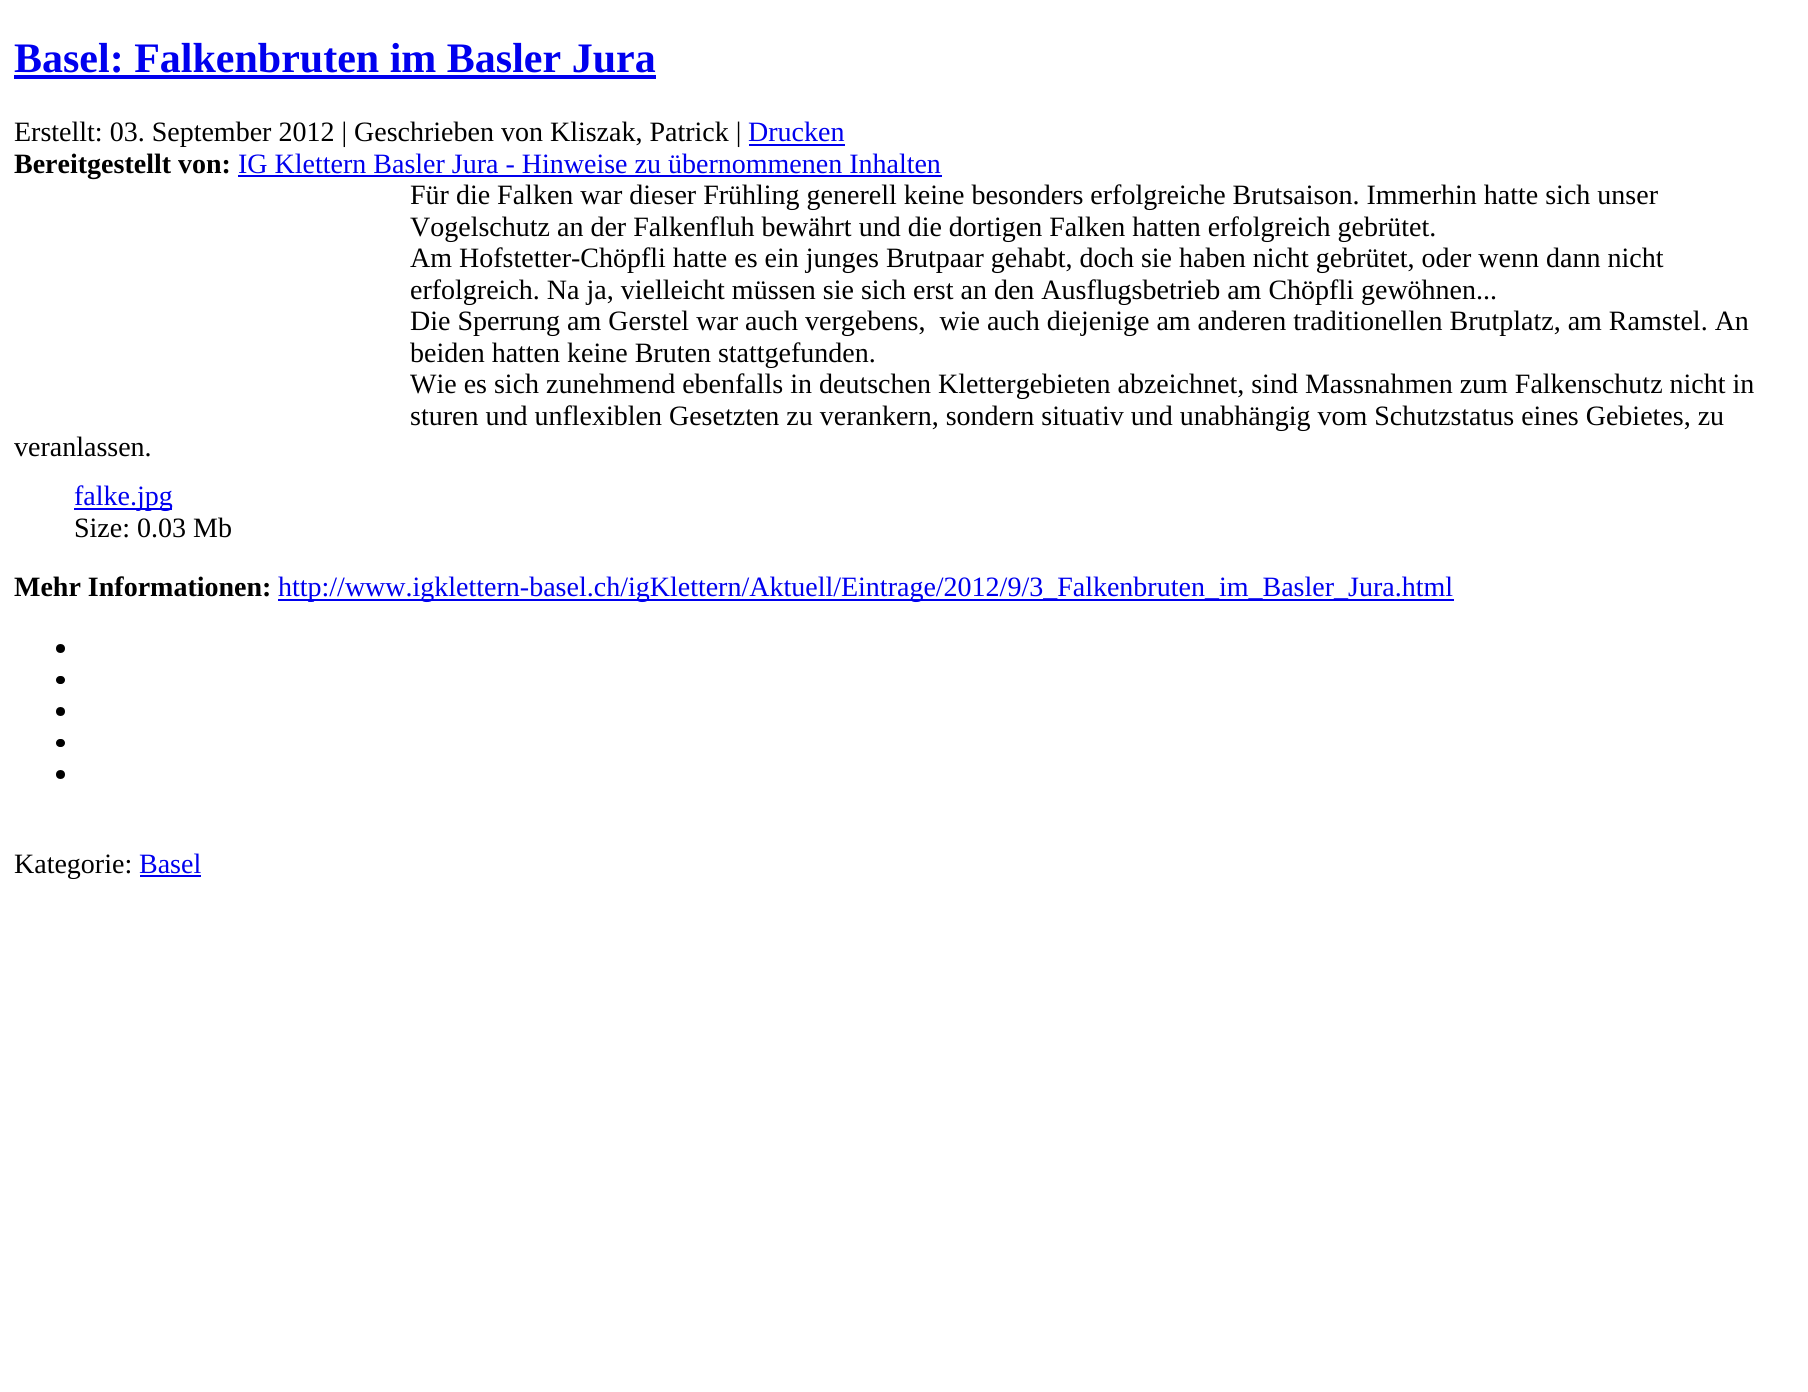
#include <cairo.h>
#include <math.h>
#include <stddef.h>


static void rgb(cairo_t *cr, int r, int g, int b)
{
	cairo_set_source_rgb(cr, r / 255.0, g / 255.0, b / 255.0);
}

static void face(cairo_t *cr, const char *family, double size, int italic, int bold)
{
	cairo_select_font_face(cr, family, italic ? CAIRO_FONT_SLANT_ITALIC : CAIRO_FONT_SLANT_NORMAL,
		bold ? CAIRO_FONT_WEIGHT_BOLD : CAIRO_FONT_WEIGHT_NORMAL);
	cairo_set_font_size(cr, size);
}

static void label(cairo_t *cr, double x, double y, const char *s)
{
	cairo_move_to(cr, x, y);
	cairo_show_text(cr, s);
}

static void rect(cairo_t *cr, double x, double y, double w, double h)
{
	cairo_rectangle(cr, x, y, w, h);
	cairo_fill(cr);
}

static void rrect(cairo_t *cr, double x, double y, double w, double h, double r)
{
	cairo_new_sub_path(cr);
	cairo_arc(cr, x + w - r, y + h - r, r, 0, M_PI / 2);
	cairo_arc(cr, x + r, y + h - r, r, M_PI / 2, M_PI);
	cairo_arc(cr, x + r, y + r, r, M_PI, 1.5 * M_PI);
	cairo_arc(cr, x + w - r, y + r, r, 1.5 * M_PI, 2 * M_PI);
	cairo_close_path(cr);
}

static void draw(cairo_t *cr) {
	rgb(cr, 255, 255, 255);
	cairo_paint(cr);
	face(cr, "Liberation Serif", 42, 0, 1);
	rgb(cr, 0, 0, 238);
	label(cr, 14, 72, "Basel: Falkenbruten im Basler Jura");
	rect(cr, 14, 75, 642, 4);
	face(cr, "Liberation Serif", 28, 0, 0);
	rgb(cr, 0, 0, 0);
	label(cr, 14, 141, "Erstellt: 03. September 2012 | Geschrieben von Kliszak, Patrick |");
	rgb(cr, 0, 0, 238);
	label(cr, 748, 141, "Drucken");
	rect(cr, 749, 144, 96, 2);
	face(cr, "Liberation Serif", 28, 0, 1);
	rgb(cr, 0, 0, 0);
	label(cr, 14, 173, "Bereitgestellt von:");
	face(cr, "Liberation Serif", 28, 0, 0);
	rgb(cr, 0, 0, 238);
	label(cr, 238, 173, "IG Klettern Basler Jura - Hinweise zu übernommenen Inhalten");
	rect(cr, 238, 175, 704, 2);
	rgb(cr, 0, 0, 0);
	label(cr, 410, 204, "Für die Falken war dieser Frühling generell keine besonders erfolgreiche Brutsaison. Immerhin hatte sich unser");
	label(cr, 410, 236, "Vogelschutz an der Falkenfluh bewährt und die dortigen Falken hatten erfolgreich gebrütet.");
	label(cr, 410, 267, "Am Hofstetter-Chöpfli hatte es ein junges Brutpaar gehabt, doch sie haben nicht gebrütet, oder wenn dann nicht");
	label(cr, 410, 299, "erfolgreich. Na ja, vielleicht müssen sie sich erst an den Ausflugsbetrieb am Chöpfli gewöhnen...");
	label(cr, 410, 330, "Die Sperrung am Gerstel war auch vergebens,  wie auch diejenige am anderen traditionellen Brutplatz, am Ramstel. An");
	label(cr, 410, 362, "beiden hatten keine Bruten stattgefunden.");
	label(cr, 410, 393, "Wie es sich zunehmend ebenfalls in deutschen Klettergebieten abzeichnet, sind Massnahmen zum Falkenschutz nicht in");
	label(cr, 410, 425, "sturen und unflexiblen Gesetzten zu verankern, sondern situativ und unabhängig vom Schutzstatus eines Gebietes, zu");
	label(cr, 14, 456, "veranlassen.");
	rgb(cr, 0, 0, 238);
	rect(cr, 74, 508, 98, 2);
	label(cr, 74, 505, "falke.jpg");
	rgb(cr, 0, 0, 0);
	label(cr, 74, 537, "Size: 0.03 Mb");
	face(cr, "Liberation Serif", 28, 0, 1);
	label(cr, 14, 596, "Mehr Informationen:");
	rgb(cr, 0, 0, 238);
	rect(cr, 278, 599, 1176, 2);
	face(cr, "Liberation Serif", 28, 0, 0);
	label(cr, 278, 596, "http://www.igklettern-basel.ch/igKlettern/Aktuell/Eintrage/2012/9/3_Falkenbruten_im_Basler_Jura.html");
	rgb(cr, 0, 0, 0);
	cairo_new_path(cr);
	cairo_arc(cr, 60.5, 648.5, 4.5, 0, 2 * M_PI);
	cairo_fill(cr);
	rrect(cr, 56, 676, 9, 8, 4);
	cairo_fill(cr);
	cairo_arc(cr, 60.5, 711.5, 4.5, 0, 2 * M_PI);
	cairo_fill(cr);
	rrect(cr, 56, 739, 9, 8, 4);
	cairo_fill(cr);
	cairo_arc(cr, 60.5, 774.5, 4.5, 0, 2 * M_PI);
	cairo_fill(cr);
	label(cr, 14, 873, "Kategorie:");
	rgb(cr, 0, 0, 238);
	label(cr, 139, 873, "Basel");
	rect(cr, 140, 875, 61, 2);
}

int main(void) {
	cairo_surface_t *surface = cairo_image_surface_create(CAIRO_FORMAT_RGB24, 1808, 1392);
	cairo_t *cr = cairo_create(surface);
	cairo_font_options_t *options = cairo_font_options_create();
	cairo_font_options_set_hint_metrics(options, CAIRO_HINT_METRICS_OFF);
	cairo_font_options_set_hint_style(options, CAIRO_HINT_STYLE_NONE);
	cairo_set_font_options(cr, options);
	cairo_set_miter_limit(cr, 4);
	draw(cr);
	cairo_surface_write_to_png(surface, "render.png");
	cairo_font_options_destroy(options);
	cairo_destroy(cr);
	cairo_surface_destroy(surface);
	return 0;
}
